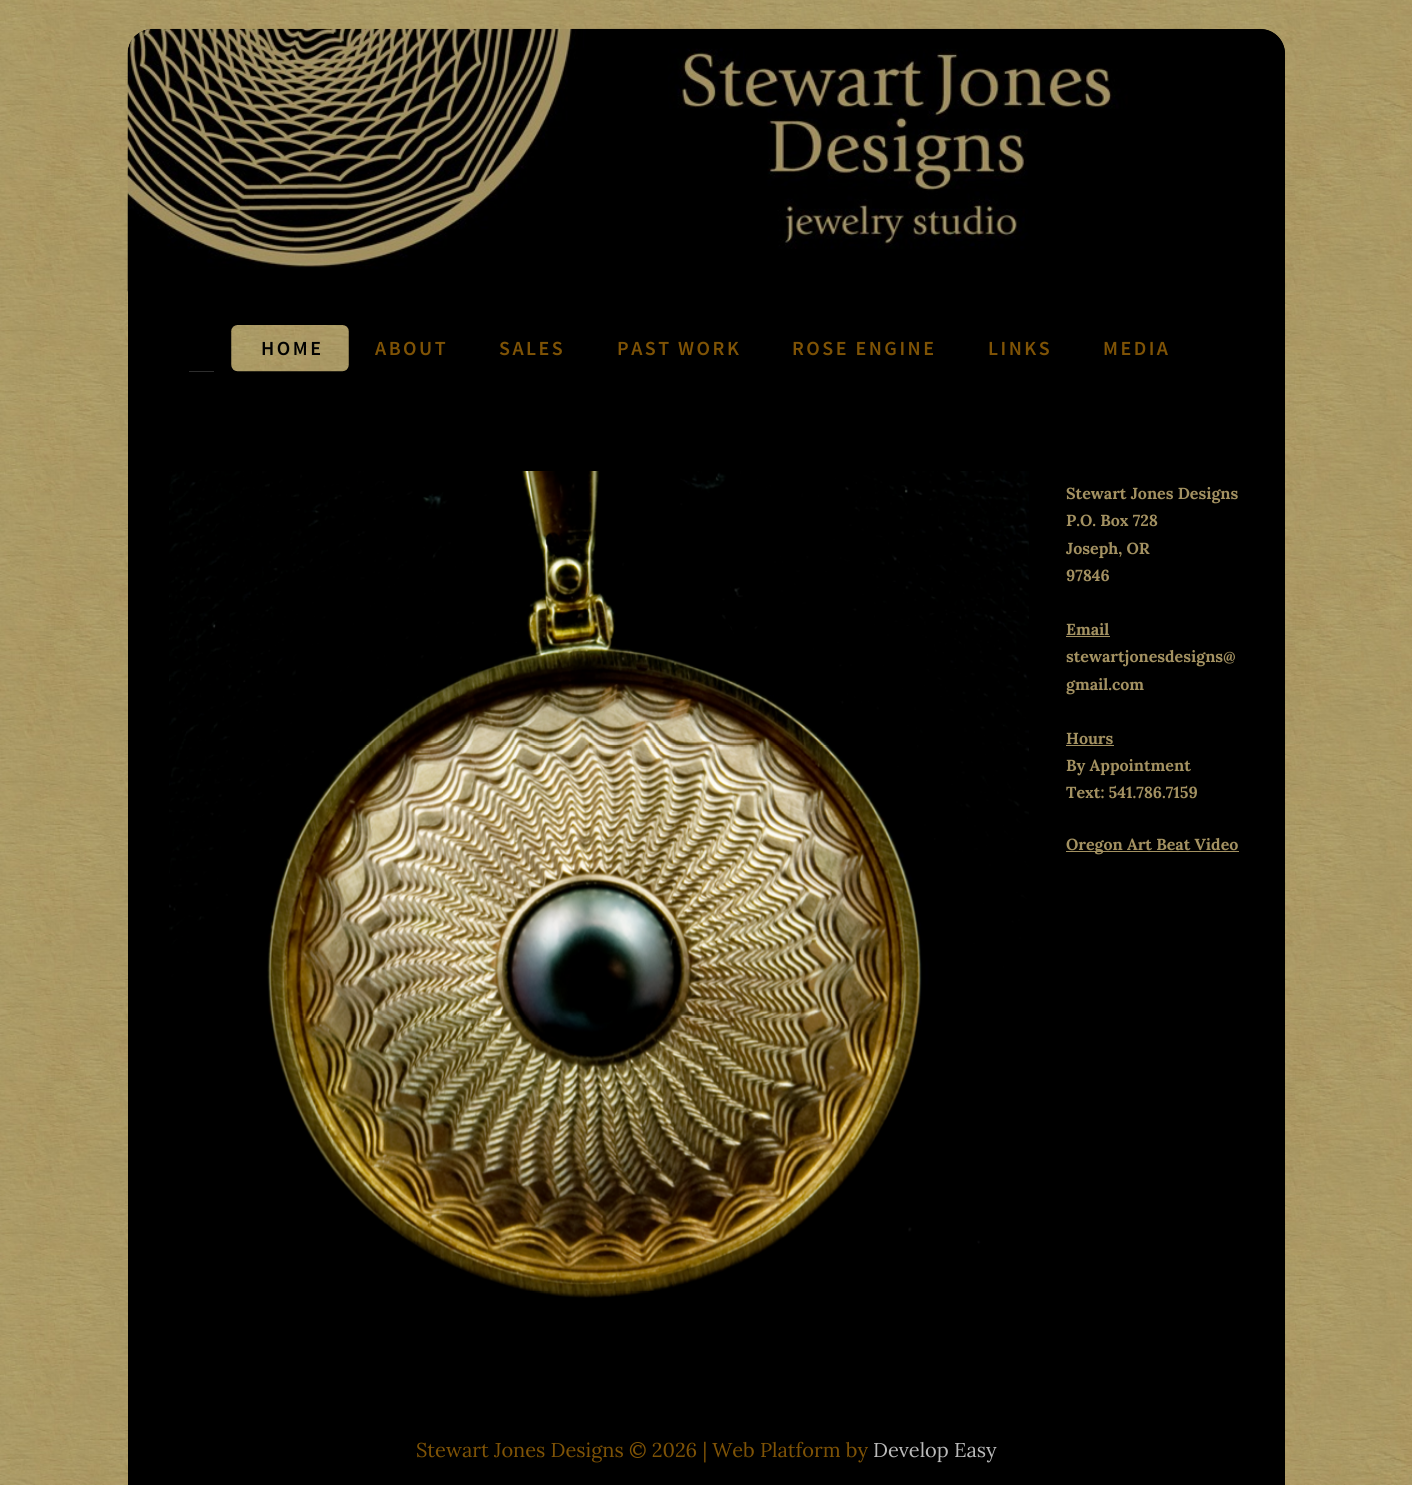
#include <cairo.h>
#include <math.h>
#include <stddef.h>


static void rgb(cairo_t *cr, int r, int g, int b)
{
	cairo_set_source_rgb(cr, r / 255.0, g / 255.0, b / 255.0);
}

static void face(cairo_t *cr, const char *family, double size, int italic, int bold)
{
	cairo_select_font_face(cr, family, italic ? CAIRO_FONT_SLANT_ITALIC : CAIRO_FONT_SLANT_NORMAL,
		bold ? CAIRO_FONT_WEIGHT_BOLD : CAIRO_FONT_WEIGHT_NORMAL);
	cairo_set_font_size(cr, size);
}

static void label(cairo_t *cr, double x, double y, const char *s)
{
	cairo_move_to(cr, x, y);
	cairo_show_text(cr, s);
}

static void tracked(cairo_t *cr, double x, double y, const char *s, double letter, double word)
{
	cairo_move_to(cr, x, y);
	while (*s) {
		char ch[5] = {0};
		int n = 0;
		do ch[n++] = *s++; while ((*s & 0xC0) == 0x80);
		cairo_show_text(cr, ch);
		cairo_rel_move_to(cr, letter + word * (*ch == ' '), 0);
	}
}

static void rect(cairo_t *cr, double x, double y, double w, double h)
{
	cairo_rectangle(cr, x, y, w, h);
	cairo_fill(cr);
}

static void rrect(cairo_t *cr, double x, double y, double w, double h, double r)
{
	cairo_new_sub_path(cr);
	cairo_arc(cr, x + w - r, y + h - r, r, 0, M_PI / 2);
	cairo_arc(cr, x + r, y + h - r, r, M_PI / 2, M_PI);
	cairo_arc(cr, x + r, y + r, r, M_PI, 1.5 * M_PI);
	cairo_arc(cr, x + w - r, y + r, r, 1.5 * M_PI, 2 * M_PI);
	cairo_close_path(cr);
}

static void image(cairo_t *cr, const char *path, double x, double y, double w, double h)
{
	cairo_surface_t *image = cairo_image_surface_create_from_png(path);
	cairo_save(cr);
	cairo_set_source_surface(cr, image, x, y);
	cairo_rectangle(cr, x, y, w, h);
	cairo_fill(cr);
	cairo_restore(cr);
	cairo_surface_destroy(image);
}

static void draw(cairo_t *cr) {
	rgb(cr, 255, 255, 255);
	cairo_paint(cr);
	image(cr, "image0.png", 0, 0, 1412, 1485);
	rgb(cr, 0, 0, 0);
	rrect(cr, 128, 29, 1157, 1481, 25);
	cairo_fill(cr);
	cairo_new_path(cr);
	cairo_move_to(cr, 153, 29);
	cairo_line_to(cr, 1260, 29);
	cairo_curve_to(cr, 1274, 29, 1285, 40, 1285, 54);
	cairo_line_to(cr, 1285, 371);
	cairo_line_to(cr, 128, 371);
	cairo_line_to(cr, 128, 54);
	cairo_curve_to(cr, 128, 40, 139, 29, 153, 29);
	cairo_close_path(cr);
	cairo_fill(cr);
	image(cr, "image1.png", 127, 28, 1076, 264);
	image(cr, "image2.png", 231, 325, 118, 47);
	face(cr, "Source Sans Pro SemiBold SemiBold", 20, 0, 0);
	tracked(cr, 261, 355, "HOME", 2.5, 0);
	rgb(cr, 127, 83, 5);
	tracked(cr, 375, 355, "ABOUT", 2.5, 0);
	tracked(cr, 499, 355, "SALES", 2.5, 0);
	tracked(cr, 617, 355, "PAST WORK", 2.5, 0);
	tracked(cr, 792, 355, "ROSE ENGINE", 2.5, 0);
	tracked(cr, 988, 355, "LINKS", 2.5, 0);
	tracked(cr, 1103, 355, "MEDIA", 2.5, 0);
	rgb(cr, 45, 45, 45);
	rect(cr, 189, 371, 25, 1);
	image(cr, "image3.png", 169, 471, 860, 827);
	face(cr, "Lora", 16, 0, 1);
	rgb(cr, 163, 145, 97);
	label(cr, 1066, 499, "Stewart Jones Designs");
	label(cr, 1066, 526, "P.O. Box 728");
	label(cr, 1066, 554, "Joseph, OR");
	label(cr, 1066, 581, "97846");
	label(cr, 1066, 635, "Email");
	rect(cr, 1066, 636, 44, 1);
	label(cr, 1066, 662, "stewartjonesdesigns@");
	label(cr, 1066, 690, "gmail.com");
	label(cr, 1066, 744, "Hours");
	rect(cr, 1066, 745, 48, 1);
	label(cr, 1066, 771, "By Appointment");
	label(cr, 1066, 798, "Text: 541.786.7159");
	rect(cr, 1066, 851, 173, 1);
	label(cr, 1066, 850, "Oregon Art Beat Video");
	face(cr, "Lora", 20, 0, 0);
	rgb(cr, 127, 83, 5);
	label(cr, 416, 1457, "Stewart Jones Designs © 2026 | Web Platform by");
	rgb(cr, 186, 186, 186);
	label(cr, 873, 1457, "Develop Easy");
}

int main(void) {
	cairo_surface_t *surface = cairo_image_surface_create(CAIRO_FORMAT_RGB24, 1412, 1485);
	cairo_t *cr = cairo_create(surface);
	cairo_font_options_t *options = cairo_font_options_create();
	cairo_font_options_set_hint_metrics(options, CAIRO_HINT_METRICS_OFF);
	cairo_font_options_set_hint_style(options, CAIRO_HINT_STYLE_NONE);
	cairo_set_font_options(cr, options);
	cairo_set_miter_limit(cr, 4);
	draw(cr);
	cairo_surface_write_to_png(surface, "render.png");
	cairo_font_options_destroy(options);
	cairo_destroy(cr);
	cairo_surface_destroy(surface);
	return 0;
}
